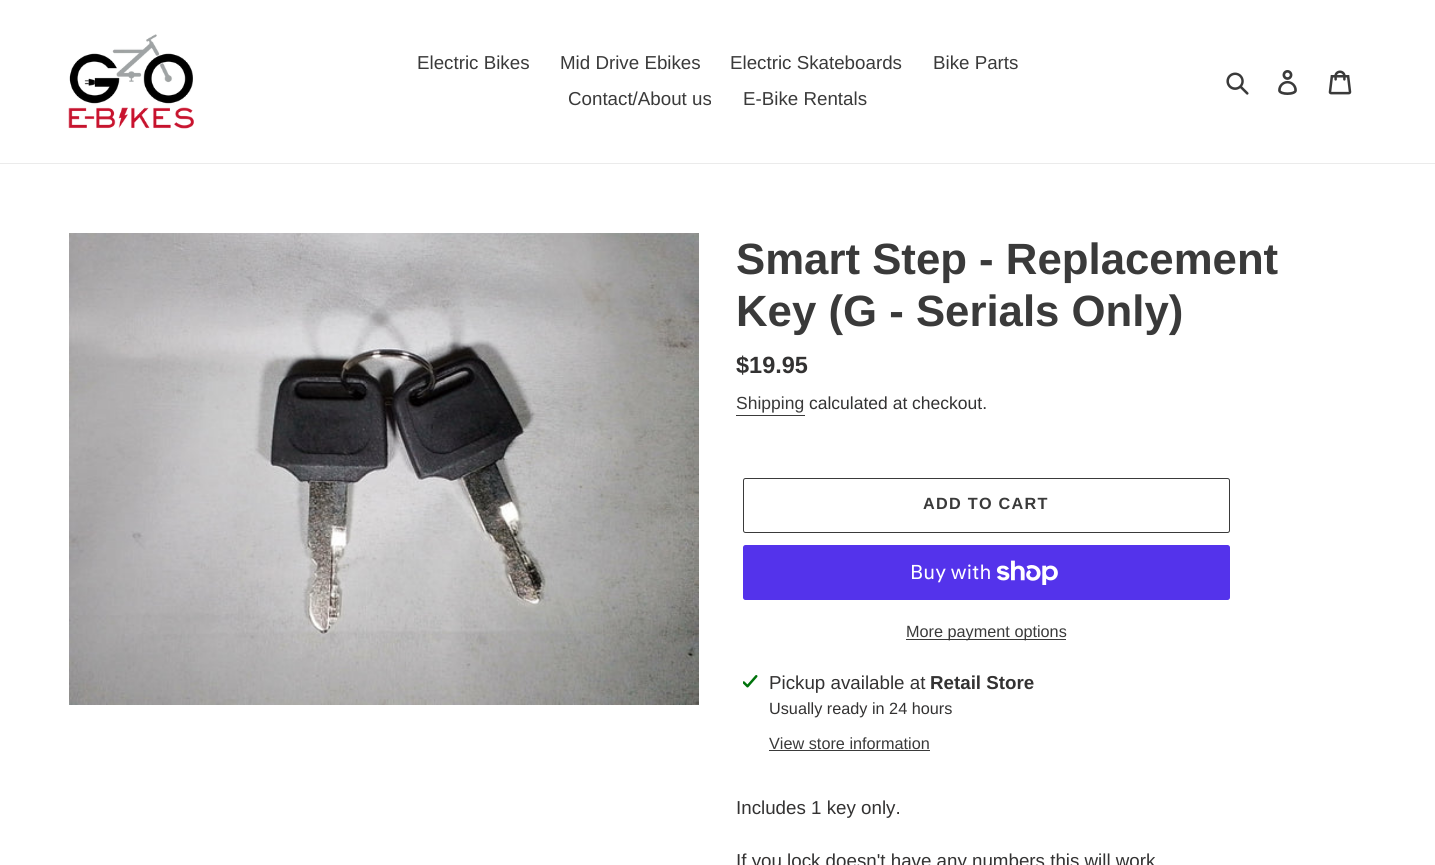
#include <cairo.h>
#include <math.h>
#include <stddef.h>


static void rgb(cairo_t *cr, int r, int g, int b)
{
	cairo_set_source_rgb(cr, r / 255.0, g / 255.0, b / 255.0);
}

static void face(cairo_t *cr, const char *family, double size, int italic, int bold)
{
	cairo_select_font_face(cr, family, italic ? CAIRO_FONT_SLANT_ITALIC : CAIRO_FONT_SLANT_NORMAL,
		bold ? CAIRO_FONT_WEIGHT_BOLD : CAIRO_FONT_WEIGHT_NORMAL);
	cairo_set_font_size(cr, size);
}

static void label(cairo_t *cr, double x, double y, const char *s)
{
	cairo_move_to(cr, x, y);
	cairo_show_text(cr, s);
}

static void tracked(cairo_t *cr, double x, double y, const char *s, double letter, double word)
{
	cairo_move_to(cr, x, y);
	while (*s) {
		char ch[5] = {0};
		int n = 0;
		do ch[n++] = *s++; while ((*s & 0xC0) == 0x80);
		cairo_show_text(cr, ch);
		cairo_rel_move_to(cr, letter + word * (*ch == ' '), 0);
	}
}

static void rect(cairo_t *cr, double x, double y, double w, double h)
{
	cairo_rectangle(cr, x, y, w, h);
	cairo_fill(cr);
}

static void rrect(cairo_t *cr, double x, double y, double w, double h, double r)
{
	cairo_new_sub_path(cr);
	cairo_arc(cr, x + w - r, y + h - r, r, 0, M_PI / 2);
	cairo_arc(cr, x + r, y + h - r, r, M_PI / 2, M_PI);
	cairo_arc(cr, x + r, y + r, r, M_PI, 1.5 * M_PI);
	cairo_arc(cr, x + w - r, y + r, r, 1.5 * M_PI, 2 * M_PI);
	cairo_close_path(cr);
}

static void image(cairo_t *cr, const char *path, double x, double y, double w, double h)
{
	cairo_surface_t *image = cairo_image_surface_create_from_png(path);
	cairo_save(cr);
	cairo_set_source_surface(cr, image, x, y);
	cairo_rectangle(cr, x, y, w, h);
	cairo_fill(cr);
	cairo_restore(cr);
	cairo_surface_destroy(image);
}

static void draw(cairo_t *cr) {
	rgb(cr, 255, 255, 255);
	cairo_paint(cr);
	rgb(cr, 235, 235, 235);
	rect(cr, 0, 163, 1435, 1);
	image(cr, "image0.png", 68, 34, 126, 95);
	face(cr, "Liberation Sans", 18.75, 0, 0);
	rgb(cr, 58, 58, 58);
	label(cr, 417, 69, "Electric Bikes");
	label(cr, 560, 69, "Mid Drive Ebikes");
	label(cr, 730, 69, "Electric Skateboards");
	label(cr, 933, 69, "Bike Parts");
	label(cr, 568, 105, "Contact/About us");
	label(cr, 743, 105, "E-Bike Rentals");
	image(cr, "image1.png", 1226, 72, 23, 23);
	image(cr, "image2.png", 1278, 70, 19, 25);
	image(cr, "image3.png", 1328, 70, 24, 25);
	image(cr, "image4.png", 69, 233, 630, 472);
	face(cr, "Liberation Sans", 43.75, 0, 1);
	label(cr, 736, 274, "Smart Step - Replacement");
	label(cr, 736, 326, "Key (G - Serials Only)");
	face(cr, "Liberation Sans", 23.5, 0, 1);
	rgb(cr, 51, 50, 50);
	label(cr, 736, 373, "$19.95");
	face(cr, "Liberation Sans", 17.5, 0, 0);
	rgb(cr, 58, 58, 58);
	label(cr, 736, 409, "Shipping");
	rect(cr, 736, 415, 69, 1);
	rgb(cr, 51, 50, 50);
	label(cr, 809, 409, "calculated at checkout.");
	rrect(cr, 743.5, 478.5, 486, 54, 2);
	rgb(cr, 58, 58, 58);
	cairo_set_line_width(cr, 1);
	cairo_stroke(cr);
	face(cr, "Liberation Sans", 16.25, 0, 1);
	tracked(cr, 923, 509, "ADD TO CART", 1.25, 0);
	rgb(cr, 84, 51, 235);
	rrect(cr, 743, 545, 487, 55, 2.5);
	cairo_fill(cr);
	face(cr, "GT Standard", 20, 0, 0);
	rgb(cr, 255, 255, 255);
	label(cr, 910, 579, "Buy with");
	image(cr, "image5.png", 996, 560, 62, 25);
	rgb(cr, 58, 58, 58);
	rect(cr, 906, 639, 160, 1);
	face(cr, "Liberation Sans", 16.25, 0, 0);
	label(cr, 906, 637, "More payment options");
	image(cr, "image6.png", 743, 675, 15, 13);
	face(cr, "Liberation Sans", 18.75, 0, 0);
	rgb(cr, 51, 50, 50);
	label(cr, 769, 689, "Pickup available at");
	face(cr, "Liberation Sans", 18.75, 0, 1);
	label(cr, 930, 689, "Retail Store");
	face(cr, "Liberation Sans", 16.25, 0, 0);
	label(cr, 769, 714, "Usually ready in 24 hours");
	rgb(cr, 58, 58, 58);
	label(cr, 769, 749, "View store information");
	rect(cr, 769, 750, 161, 1);
	face(cr, "Liberation Sans", 18.75, 0, 0);
	rgb(cr, 51, 50, 50);
	label(cr, 736, 814, "Includes 1 key only.");
	label(cr, 736, 867, "If you lock doesn't have any numbers this will work");
}

int main(void) {
	cairo_surface_t *surface = cairo_image_surface_create(CAIRO_FORMAT_RGB24, 1435, 865);
	cairo_t *cr = cairo_create(surface);
	cairo_font_options_t *options = cairo_font_options_create();
	cairo_font_options_set_hint_metrics(options, CAIRO_HINT_METRICS_OFF);
	cairo_font_options_set_hint_style(options, CAIRO_HINT_STYLE_NONE);
	cairo_set_font_options(cr, options);
	cairo_set_miter_limit(cr, 4);
	draw(cr);
	cairo_surface_write_to_png(surface, "render.png");
	cairo_font_options_destroy(options);
	cairo_destroy(cr);
	cairo_surface_destroy(surface);
	return 0;
}
